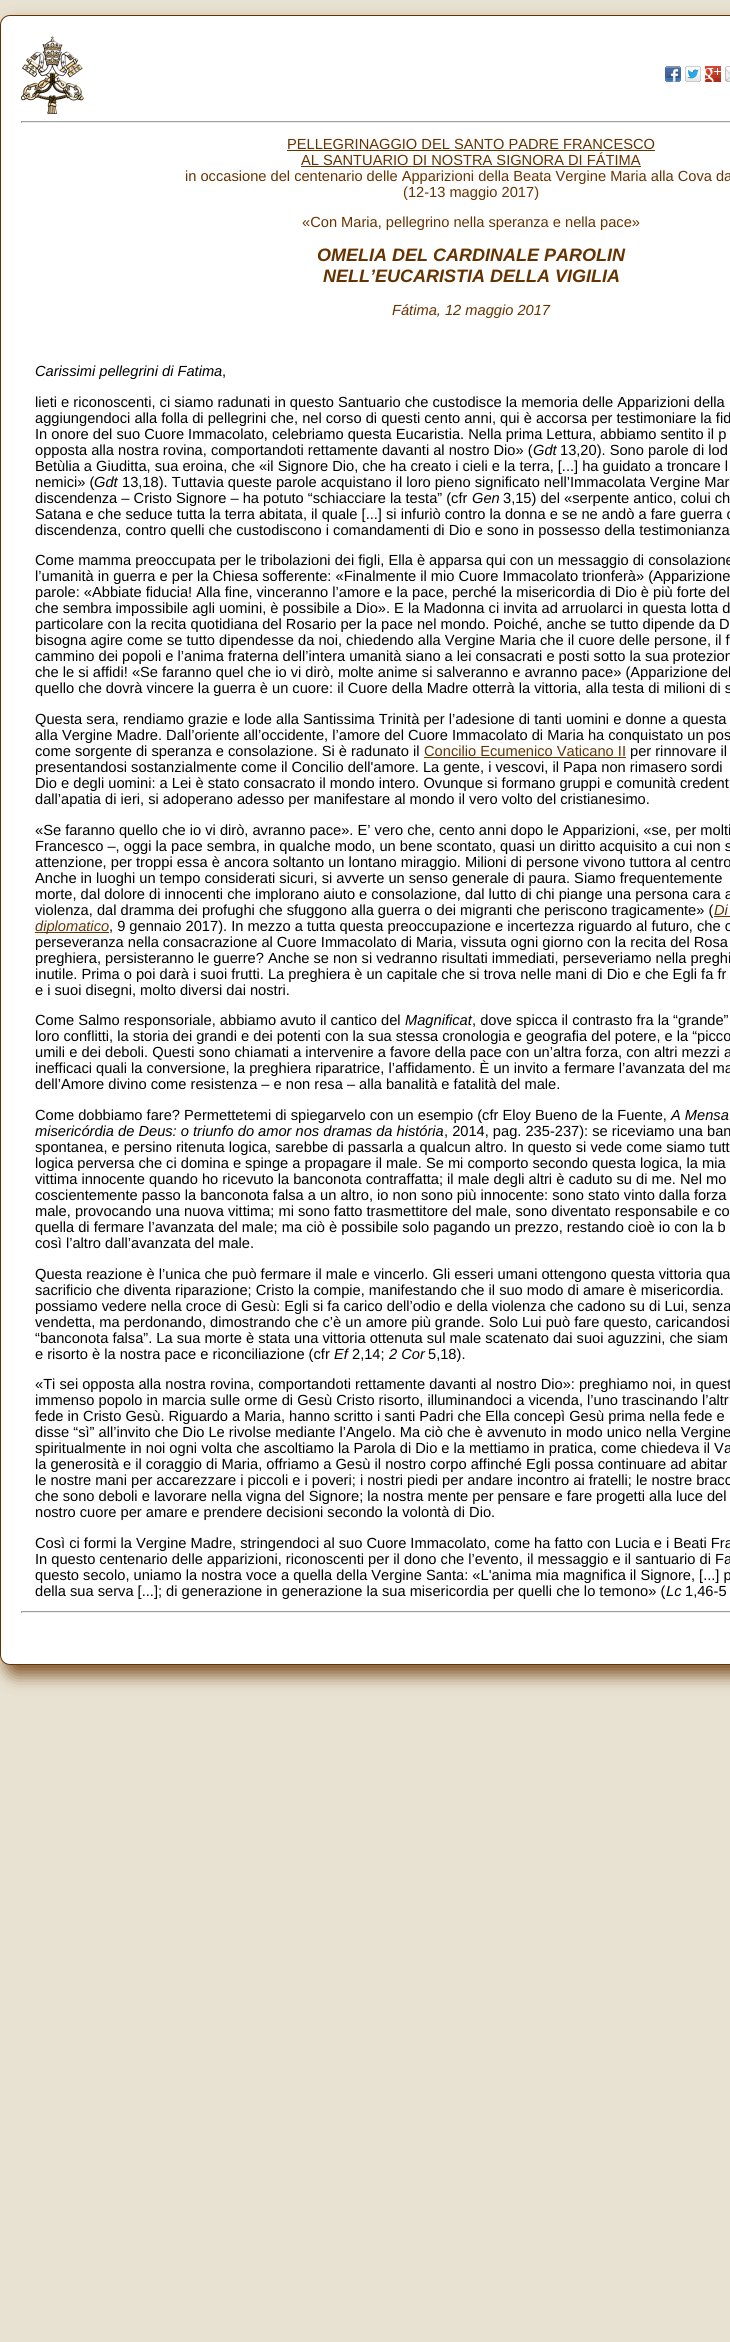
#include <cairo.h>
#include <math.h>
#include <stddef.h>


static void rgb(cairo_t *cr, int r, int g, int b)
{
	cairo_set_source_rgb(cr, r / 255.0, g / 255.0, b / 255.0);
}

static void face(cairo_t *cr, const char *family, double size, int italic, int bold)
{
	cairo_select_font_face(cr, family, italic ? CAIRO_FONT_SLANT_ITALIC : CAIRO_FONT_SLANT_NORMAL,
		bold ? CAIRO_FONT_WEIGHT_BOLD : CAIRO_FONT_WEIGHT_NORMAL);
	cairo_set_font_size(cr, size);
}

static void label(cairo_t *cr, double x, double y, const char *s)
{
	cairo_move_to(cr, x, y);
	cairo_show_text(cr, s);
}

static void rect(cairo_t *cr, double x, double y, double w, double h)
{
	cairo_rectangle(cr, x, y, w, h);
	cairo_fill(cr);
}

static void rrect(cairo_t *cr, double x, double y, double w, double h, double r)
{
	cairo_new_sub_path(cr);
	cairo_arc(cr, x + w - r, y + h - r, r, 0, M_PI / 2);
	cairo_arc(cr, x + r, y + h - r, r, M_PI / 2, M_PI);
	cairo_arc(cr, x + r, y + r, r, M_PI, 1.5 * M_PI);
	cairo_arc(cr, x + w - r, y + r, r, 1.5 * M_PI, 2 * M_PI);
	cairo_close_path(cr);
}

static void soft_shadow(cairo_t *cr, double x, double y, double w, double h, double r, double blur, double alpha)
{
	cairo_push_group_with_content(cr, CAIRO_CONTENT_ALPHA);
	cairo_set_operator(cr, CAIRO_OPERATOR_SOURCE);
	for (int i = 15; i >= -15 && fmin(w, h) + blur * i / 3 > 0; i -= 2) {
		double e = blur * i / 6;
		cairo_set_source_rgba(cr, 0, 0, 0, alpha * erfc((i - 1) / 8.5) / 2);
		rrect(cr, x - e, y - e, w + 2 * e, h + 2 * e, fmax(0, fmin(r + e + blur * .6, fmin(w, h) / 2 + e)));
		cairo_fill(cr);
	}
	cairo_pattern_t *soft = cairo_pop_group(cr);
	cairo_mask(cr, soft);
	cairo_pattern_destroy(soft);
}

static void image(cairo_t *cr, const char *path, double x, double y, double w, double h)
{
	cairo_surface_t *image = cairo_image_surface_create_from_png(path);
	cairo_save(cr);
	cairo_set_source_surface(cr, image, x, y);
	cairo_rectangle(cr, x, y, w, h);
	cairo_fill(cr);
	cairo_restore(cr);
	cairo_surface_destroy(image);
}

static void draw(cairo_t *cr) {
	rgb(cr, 232, 226, 210);
	cairo_paint(cr);
	rgb(cr, 102, 51, 0);
	soft_shadow(cr, 6, 25, 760, 1650, 10, 8.5, 0.8);
	rgb(cr, 255, 255, 255);
	rrect(cr, 0.5, 15.5, 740, 1649, 9.5);
	cairo_fill_preserve(cr);
	rgb(cr, 102, 51, 0);
	cairo_set_line_width(cr, 1);
	cairo_stroke(cr);
	image(cr, "image0.png", 21, 36, 63, 78);
	image(cr, "image1.png", 665, 66, 16, 16);
	image(cr, "image2.png", 685, 66, 16, 16);
	image(cr, "image3.png", 705, 66, 16, 16);
	image(cr, "image4.png", 725, 66, 5, 16);
	rgb(cr, 159, 159, 159);
	rect(cr, 21, 121, 709, 1);
	rgb(cr, 238, 238, 238);
	rect(cr, 21, 122, 709, 1);
	rgb(cr, 159, 159, 159);
	rect(cr, 21, 121, 1, 2);
	face(cr, "Liberation Sans", 14.65, 0, 0);
	rgb(cr, 102, 51, 0);
	label(cr, 287, 149, "PELLEGRINAGGIO DEL SANTO PADRE FRANCESCO");
	rect(cr, 287, 150, 368, 1);
	label(cr, 301, 165, "AL SANTUARIO DI NOSTRA SIGNORA DI FÁTIMA");
	rect(cr, 301, 166, 340, 1);
	label(cr, 185, 181, "in occasione del centenario delle Apparizioni della Beata Vergine Maria alla Cova da");
	label(cr, 403, 197, "(12-13 maggio 2017)");
	label(cr, 302, 227, "«Con Maria, pellegrino nella speranza e nella pace»");
	face(cr, "Liberation Sans", 18, 1, 1);
	label(cr, 317, 261, "OMELIA DEL CARDINALE PAROLIN");
	label(cr, 323, 282, "NELL’EUCARISTIA DELLA VIGILIA");
	face(cr, "Liberation Sans", 14.65, 1, 0);
	label(cr, 392, 315, "Fátima, 12 maggio 2017");
	rgb(cr, 0, 0, 0);
	label(cr, 35, 376, "Carissimi pellegrini di Fatima");
	face(cr, "Liberation Sans", 14.65, 0, 0);
	label(cr, 222, 376, ",");
	label(cr, 35, 407, "lieti e riconoscenti, ci siamo radunati in questo Santuario che custodisce la memoria delle Apparizioni della");
	label(cr, 35, 423, "aggiungendoci alla folla di pellegrini che, nel corso di questi cento anni, qui è accorsa per testimoniare la fid");
	label(cr, 35, 439, "In onore del suo Cuore Immacolato, celebriamo questa Eucaristia. Nella prima Lettura, abbiamo sentito il p");
	label(cr, 35, 455, "opposta alla nostra rovina, comportandoti rettamente davanti al nostro Dio» (");
	face(cr, "Liberation Sans", 14.65, 1, 0);
	label(cr, 533, 455, "Gdt");
	face(cr, "Liberation Sans", 14.65, 0, 0);
	label(cr, 560, 455, "13,20). Sono parole di lod");
	label(cr, 35, 471, "Betùlia a Giuditta, sua eroina, che «il Signore Dio, che ha creato i cieli e la terra, [...] ha guidato a troncare l");
	label(cr, 35, 487, "nemici» (");
	face(cr, "Liberation Sans", 14.65, 1, 0);
	label(cr, 94, 487, "Gdt");
	face(cr, "Liberation Sans", 14.65, 0, 0);
	label(cr, 122, 487, "13,18). Tuttavia queste parole acquistano il loro pieno significato nell’Immacolata Vergine Mar");
	label(cr, 35, 503, "discendenza – Cristo Signore – ha potuto “schiacciare la testa” (cfr");
	face(cr, "Liberation Sans", 14.65, 1, 0);
	label(cr, 472, 503, "Gen");
	face(cr, "Liberation Sans", 14.65, 0, 0);
	label(cr, 503, 503, "3,15) del «serpente antico, colui ch");
	label(cr, 35, 519, "Satana e che seduce tutta la terra abitata, il quale [...] si infuriò contro la donna e se ne andò a fare guerra c");
	label(cr, 35, 535, "discendenza, contro quelli che custodiscono i comandamenti di Dio e sono in possesso della testimonianza");
	label(cr, 35, 565, "Come mamma preoccupata per le tribolazioni dei figli, Ella è apparsa qui con un messaggio di consolazione");
	label(cr, 35, 581, "l’umanità in guerra e per la Chiesa sofferente: «Finalmente il mio Cuore Immacolato trionferà» (Apparizione");
	label(cr, 35, 597, "parole: «Abbiate fiducia! Alla fine, vinceranno l’amore e la pace, perché la misericordia di Dio è più forte del");
	label(cr, 35, 613, "che sembra impossibile agli uomini, è possibile a Dio». E la Madonna ci invita ad arruolarci in questa lotta d");
	label(cr, 35, 629, "particolare con la recita quotidiana del Rosario per la pace nel mondo. Poiché, anche se tutto dipende da D");
	label(cr, 35, 645, "bisogna agire come se tutto dipendesse da noi, chiedendo alla Vergine Maria che il cuore delle persone, il f");
	label(cr, 35, 661, "cammino dei popoli e l’anima fraterna dell’intera umanità siano a lei consacrati e posti sotto la sua protezion");
	label(cr, 35, 677, "che le si affidi! «Se faranno quel che io vi dirò, molte anime si salveranno e avranno pace» (Apparizione del");
	label(cr, 35, 693, "quello che dovrà vincere la guerra è un cuore: il Cuore della Madre otterrà la vittoria, alla testa di milioni di s");
	label(cr, 35, 724, "Questa sera, rendiamo grazie e lode alla Santissima Trinità per l’adesione di tanti uomini e donne a questa");
	label(cr, 35, 740, "alla Vergine Madre. Dall’oriente all’occidente, l’amore del Cuore Immacolato di Maria ha conquistato un pos");
	label(cr, 35, 756, "come sorgente di speranza e consolazione. Si è radunato il");
	rgb(cr, 102, 51, 0);
	label(cr, 424, 756, "Concilio Ecumenico Vaticano II");
	rect(cr, 424, 757, 202, 1);
	rgb(cr, 0, 0, 0);
	label(cr, 630, 756, "per rinnovare il");
	label(cr, 35, 772, "presentandosi sostanzialmente come il Concilio dell'amore. La gente, i vescovi, il Papa non rimasero sordi");
	label(cr, 35, 788, "Dio e degli uomini: a Lei è stato consacrato il mondo intero. Ovunque si formano gruppi e comunità credent");
	label(cr, 35, 804, "dall’apatia di ieri, si adoperano adesso per manifestare al mondo il vero volto del cristianesimo.");
	label(cr, 35, 835, "«Se faranno quello che io vi dirò, avranno pace». E’ vero che, cento anni dopo le Apparizioni, «se, per molti");
	label(cr, 35, 851, "Francesco –, oggi la pace sembra, in qualche modo, un bene scontato, quasi un diritto acquisito a cui non s");
	label(cr, 35, 867, "attenzione, per troppi essa è ancora soltanto un lontano miraggio. Milioni di persone vivono tuttora al centro");
	label(cr, 35, 883, "Anche in luoghi un tempo considerati sicuri, si avverte un senso generale di paura. Siamo frequentemente");
	label(cr, 35, 899, "morte, dal dolore di innocenti che implorano aiuto e consolazione, dal lutto di chi piange una persona cara a");
	label(cr, 35, 915, "violenza, dal dramma dei profughi che sfuggono alla guerra o dei migranti che periscono tragicamente» (");
	face(cr, "Liberation Sans", 14.65, 1, 0);
	rgb(cr, 102, 51, 0);
	label(cr, 714, 915, "Di");
	rect(cr, 714, 916, 16, 1);
	rect(cr, 35, 932, 74, 1);
	label(cr, 35, 931, "diplomatico");
	face(cr, "Liberation Sans", 14.65, 0, 0);
	rgb(cr, 0, 0, 0);
	label(cr, 109, 931, ", 9 gennaio 2017). In mezzo a tutta questa preoccupazione e incertezza riguardo al futuro, che c");
	label(cr, 35, 947, "perseveranza nella consacrazione al Cuore Immacolato di Maria, vissuta ogni giorno con la recita del Rosa");
	label(cr, 35, 963, "preghiera, persisteranno le guerre? Anche se non si vedranno risultati immediati, perseveriamo nella preghi");
	label(cr, 35, 979, "inutile. Prima o poi darà i suoi frutti. La preghiera è un capitale che si trova nelle mani di Dio e che Egli fa fr");
	label(cr, 35, 995, "e i suoi disegni, molto diversi dai nostri.");
	label(cr, 35, 1025, "Come Salmo responsoriale, abbiamo avuto il cantico del");
	face(cr, "Liberation Sans", 14.65, 1, 0);
	label(cr, 405, 1025, "Magnificat");
	face(cr, "Liberation Sans", 14.65, 0, 0);
	label(cr, 472, 1025, ", dove spicca il contrasto fra la “grande”");
	label(cr, 35, 1041, "loro conflitti, la storia dei grandi e dei potenti con la sua stessa cronologia e geografia del potere, e la “picco");
	label(cr, 35, 1057, "umili e dei deboli. Questi sono chiamati a intervenire a favore della pace con un’altra forza, con altri mezzi a");
	label(cr, 35, 1073, "inefficaci quali la conversione, la preghiera riparatrice, l’affidamento. È un invito a fermare l’avanzata del ma");
	label(cr, 35, 1089, "dell’Amore divino come resistenza – e non resa – alla banalità e fatalità del male.");
	label(cr, 35, 1120, "Come dobbiamo fare? Permettetemi di spiegarvelo con un esempio (cfr Eloy Bueno de la Fuente,");
	face(cr, "Liberation Sans", 14.65, 1, 0);
	label(cr, 671, 1120, "A Mensa");
	label(cr, 35, 1136, "misericórdia de Deus: o triunfo do amor nos dramas da história");
	face(cr, "Liberation Sans", 14.65, 0, 0);
	label(cr, 444, 1136, ", 2014, pag. 235-237): se riceviamo una ban");
	label(cr, 35, 1152, "spontanea, e persino ritenuta logica, sarebbe di passarla a qualcun altro. In questo si vede come siamo tutt");
	label(cr, 35, 1168, "logica perversa che ci domina e spinge a propagare il male. Se mi comporto secondo questa logica, la mia");
	label(cr, 35, 1184, "vittima innocente quando ho ricevuto la banconota contraffatta; il male degli altri è caduto su di me. Nel mo");
	label(cr, 35, 1200, "coscientemente passo la banconota falsa a un altro, io non sono più innocente: sono stato vinto dalla forza");
	label(cr, 35, 1216, "male, provocando una nuova vittima; mi sono fatto trasmettitore del male, sono diventato responsabile e co");
	label(cr, 35, 1232, "quella di fermare l’avanzata del male; ma ciò è possibile solo pagando un prezzo, restando cioè io con la b");
	label(cr, 35, 1248, "così l’altro dall’avanzata del male.");
	label(cr, 35, 1279, "Questa reazione è l’unica che può fermare il male e vincerlo. Gli esseri umani ottengono questa vittoria qua");
	label(cr, 35, 1295, "sacrificio che diventa riparazione; Cristo la compie, manifestando che il suo modo di amare è misericordia.");
	label(cr, 35, 1311, "possiamo vedere nella croce di Gesù: Egli si fa carico dell’odio e della violenza che cadono su di Lui, senza");
	label(cr, 35, 1327, "vendetta, ma perdonando, dimostrando che c’è un amore più grande. Solo Lui può fare questo, caricandosi");
	label(cr, 35, 1343, "“banconota falsa”. La sua morte è stata una vittoria ottenuta sul male scatenato dai suoi aguzzini, che siam");
	label(cr, 35, 1359, "e risorto è la nostra pace e riconciliazione (cfr");
	face(cr, "Liberation Sans", 14.65, 1, 0);
	label(cr, 334, 1359, "Ef");
	face(cr, "Liberation Sans", 14.65, 0, 0);
	label(cr, 352, 1359, "2,14;");
	face(cr, "Liberation Sans", 14.65, 1, 0);
	label(cr, 389, 1359, "2 Cor");
	face(cr, "Liberation Sans", 14.65, 0, 0);
	label(cr, 428, 1359, "5,18).");
	label(cr, 35, 1389, "«Ti sei opposta alla nostra rovina, comportandoti rettamente davanti al nostro Dio»: preghiamo noi, in quest");
	label(cr, 35, 1405, "immenso popolo in marcia sulle orme di Gesù Cristo risorto, illuminandoci a vicenda, l’uno trascinando l’altr");
	label(cr, 35, 1421, "fede in Cristo Gesù. Riguardo a Maria, hanno scritto i santi Padri che Ella concepì Gesù prima nella fede e");
	label(cr, 35, 1437, "disse “sì” all’invito che Dio Le rivolse mediante l’Angelo. Ma ciò che è avvenuto in modo unico nella Vergine");
	label(cr, 35, 1453, "spiritualmente in noi ogni volta che ascoltiamo la Parola di Dio e la mettiamo in pratica, come chiedeva il Va");
	label(cr, 35, 1469, "la generosità e il coraggio di Maria, offriamo a Gesù il nostro corpo affinché Egli possa continuare ad abitar");
	label(cr, 35, 1485, "le nostre mani per accarezzare i piccoli e i poveri; i nostri piedi per andare incontro ai fratelli; le nostre bracc");
	label(cr, 35, 1501, "che sono deboli e lavorare nella vigna del Signore; la nostra mente per pensare e fare progetti alla luce del");
	label(cr, 35, 1517, "nostro cuore per amare e prendere decisioni secondo la volontà di Dio.");
	label(cr, 35, 1548, "Così ci formi la Vergine Madre, stringendoci al suo Cuore Immacolato, come ha fatto con Lucia e i Beati Fra");
	label(cr, 35, 1564, "In questo centenario delle apparizioni, riconoscenti per il dono che l’evento, il messaggio e il santuario di Fa");
	label(cr, 35, 1580, "questo secolo, uniamo la nostra voce a quella della Vergine Santa: «L'anima mia magnifica il Signore, [...] p");
	label(cr, 35, 1596, "della sua serva [...]; di generazione in generazione la sua misericordia per quelli che lo temono» (");
	face(cr, "Liberation Sans", 14.65, 1, 0);
	label(cr, 666, 1596, "Lc");
	face(cr, "Liberation Sans", 14.65, 0, 0);
	label(cr, 685, 1596, "1,46-5");
	rgb(cr, 159, 159, 159);
	rect(cr, 21, 1611, 709, 1);
	rgb(cr, 238, 238, 238);
	rect(cr, 21, 1612, 709, 1);
	rgb(cr, 159, 159, 159);
	rect(cr, 21, 1611, 1, 2);
}

int main(void) {
	cairo_surface_t *surface = cairo_image_surface_create(CAIRO_FORMAT_RGB24, 730, 2342);
	cairo_t *cr = cairo_create(surface);
	cairo_font_options_t *options = cairo_font_options_create();
	cairo_font_options_set_hint_metrics(options, CAIRO_HINT_METRICS_OFF);
	cairo_font_options_set_hint_style(options, CAIRO_HINT_STYLE_NONE);
	cairo_set_font_options(cr, options);
	cairo_set_miter_limit(cr, 4);
	draw(cr);
	cairo_surface_write_to_png(surface, "render.png");
	cairo_font_options_destroy(options);
	cairo_destroy(cr);
	cairo_surface_destroy(surface);
	return 0;
}
